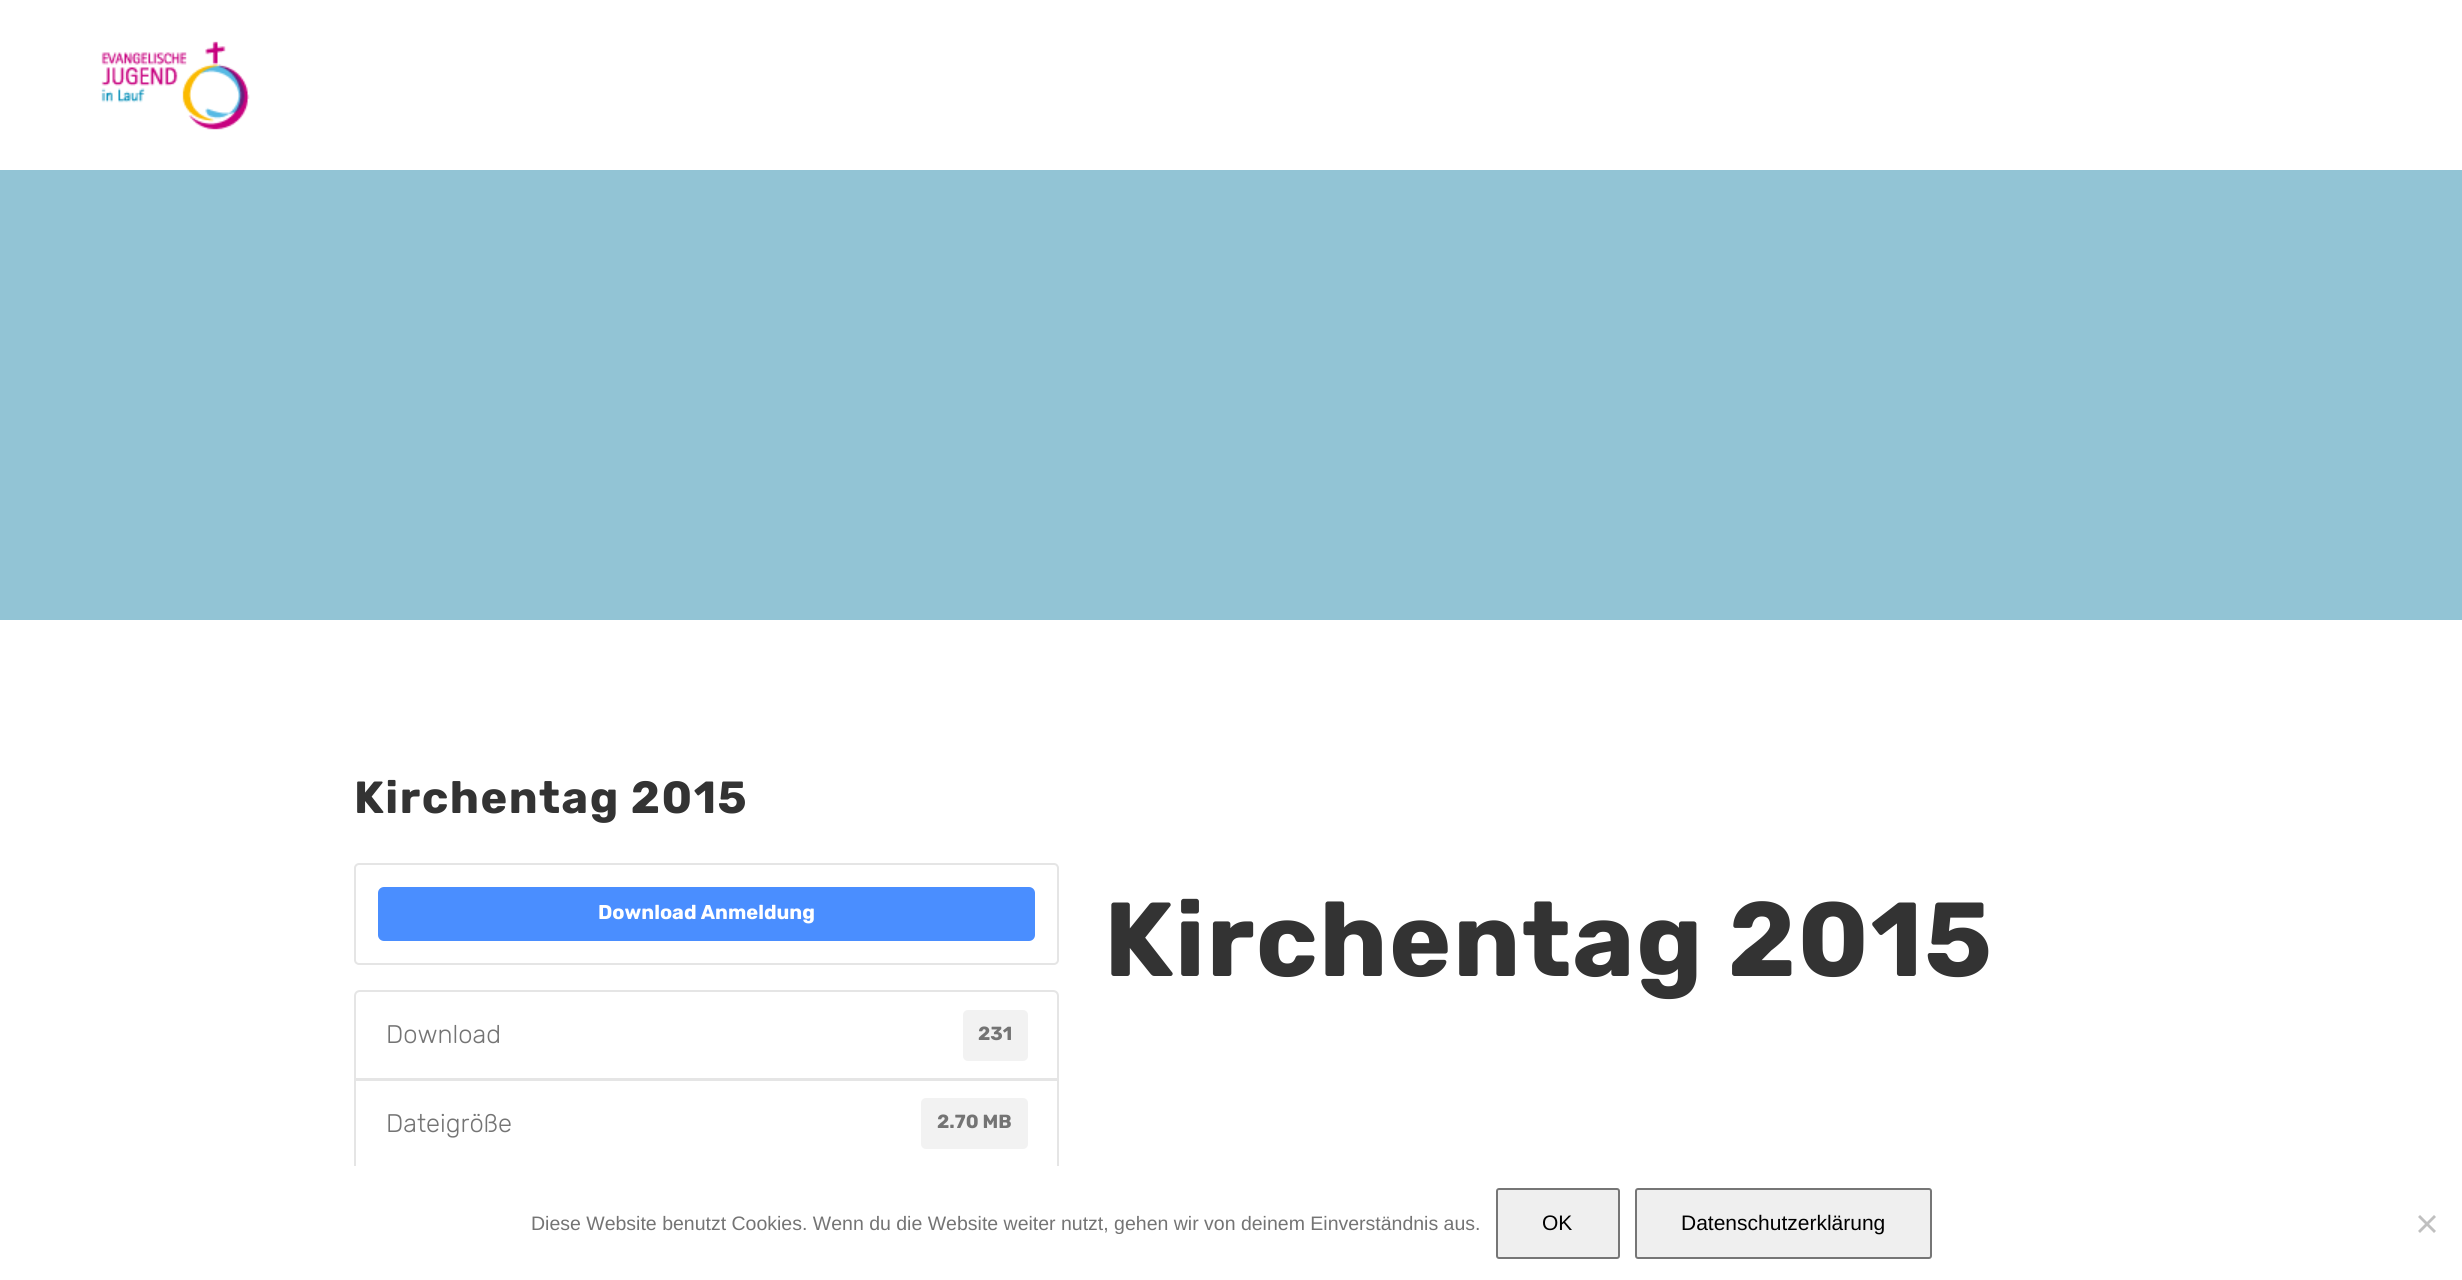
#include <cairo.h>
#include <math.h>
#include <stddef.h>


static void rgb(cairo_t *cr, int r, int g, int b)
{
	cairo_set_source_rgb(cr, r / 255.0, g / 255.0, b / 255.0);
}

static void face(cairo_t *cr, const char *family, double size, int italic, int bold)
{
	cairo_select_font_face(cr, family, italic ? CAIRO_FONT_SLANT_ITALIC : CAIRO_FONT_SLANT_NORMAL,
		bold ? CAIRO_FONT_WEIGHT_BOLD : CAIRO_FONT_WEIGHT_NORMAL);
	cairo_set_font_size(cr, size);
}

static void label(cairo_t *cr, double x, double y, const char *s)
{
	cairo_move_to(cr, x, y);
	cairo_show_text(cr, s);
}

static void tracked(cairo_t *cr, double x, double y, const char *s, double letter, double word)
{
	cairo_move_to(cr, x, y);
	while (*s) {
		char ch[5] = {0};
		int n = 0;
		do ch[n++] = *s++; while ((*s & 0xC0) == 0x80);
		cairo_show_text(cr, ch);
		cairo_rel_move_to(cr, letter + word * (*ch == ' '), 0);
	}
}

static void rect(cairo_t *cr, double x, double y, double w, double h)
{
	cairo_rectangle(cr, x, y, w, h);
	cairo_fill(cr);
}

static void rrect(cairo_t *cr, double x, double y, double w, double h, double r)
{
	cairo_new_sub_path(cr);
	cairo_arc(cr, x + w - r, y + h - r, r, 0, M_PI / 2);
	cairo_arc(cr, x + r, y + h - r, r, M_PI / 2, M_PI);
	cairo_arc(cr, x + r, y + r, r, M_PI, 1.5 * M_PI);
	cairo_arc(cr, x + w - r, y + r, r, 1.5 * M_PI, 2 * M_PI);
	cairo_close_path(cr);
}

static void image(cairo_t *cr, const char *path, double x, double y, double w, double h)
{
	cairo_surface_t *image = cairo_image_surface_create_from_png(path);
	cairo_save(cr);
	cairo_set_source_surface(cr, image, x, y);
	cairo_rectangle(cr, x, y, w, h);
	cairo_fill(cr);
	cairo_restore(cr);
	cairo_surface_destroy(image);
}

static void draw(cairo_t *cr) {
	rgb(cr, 255, 255, 255);
	cairo_paint(cr);
	image(cr, "image0.png", 101, 41, 149, 89);
	rgb(cr, 146, 196, 213);
	rect(cr, 0, 170, 2462, 450);
	face(cr, "Rubik", 45, 0, 1);
	rgb(cr, 51, 51, 51);
	tracked(cr, 354, 813, "Kirchentag 2015", 1.5, 0);
	rrect(cr, 355, 864, 703, 100, 4);
	rgb(cr, 229, 229, 229);
	cairo_stroke(cr);
	rgb(cr, 74, 142, 255);
	rrect(cr, 378, 887, 657, 54, 6);
	cairo_fill(cr);
	face(cr, "Rubik", 20, 0, 1);
	rgb(cr, 255, 255, 255);
	label(cr, 598, 919, "Download Anmeldung");
	cairo_new_path(cr);
	cairo_move_to(cr, 360, 991);
	cairo_line_to(cr, 1053, 991);
	cairo_curve_to(cr, 1056, 991, 1058, 993, 1058, 996);
	cairo_line_to(cr, 1058, 1079);
	cairo_line_to(cr, 355, 1079);
	cairo_line_to(cr, 355, 996);
	cairo_curve_to(cr, 355, 993, 357, 991, 360, 991);
	cairo_close_path(cr);
	rgb(cr, 229, 229, 229);
	cairo_stroke(cr);
	face(cr, "Rubik Light", 25.5, 0, 0);
	rgb(cr, 116, 116, 116);
	label(cr, 386, 1043, "Download");
	rgb(cr, 242, 242, 242);
	rrect(cr, 963, 1010, 65, 51, 5);
	cairo_fill(cr);
	face(cr, "Rubik", 19, 0, 1);
	rgb(cr, 116, 116, 116);
	label(cr, 978, 1040, "231");
	cairo_rectangle(cr, 355, 1080, 703, 88);
	rgb(cr, 229, 229, 229);
	cairo_stroke(cr);
	face(cr, "Rubik Light", 25.5, 0, 0);
	rgb(cr, 116, 116, 116);
	label(cr, 386, 1132, "Dateigröße");
	rgb(cr, 242, 242, 242);
	rrect(cr, 921, 1098, 107, 51, 5);
	cairo_fill(cr);
	face(cr, "Rubik", 19, 0, 1);
	rgb(cr, 116, 116, 116);
	label(cr, 937, 1128, "2.70 MB");
	face(cr, "Rubik", 105, 0, 1);
	rgb(cr, 51, 51, 51);
	tracked(cr, 1104, 976, "Kirchentag 2015", 1.5, 0);
	rgb(cr, 255, 255, 255);
	rect(cr, 354, 1166, 705, 3);
	face(cr, "Liberation Sans", 19.5, 0, 0);
	rgb(cr, 116, 116, 116);
	label(cr, 531, 1230, "Diese Website benutzt Cookies. Wenn du die Website weiter nutzt, gehen wir von deinem Einverständnis aus.");
	rgb(cr, 239, 239, 239);
	rrect(cr, 1497, 1189, 122, 69, 2);
	cairo_fill_preserve(cr);
	rgb(cr, 118, 118, 118);
	cairo_stroke(cr);
	face(cr, "Liberation Sans", 21, 0, 0);
	rgb(cr, 0, 0, 0);
	label(cr, 1542, 1230, "OK");
	rgb(cr, 239, 239, 239);
	rrect(cr, 1636, 1189, 295, 69, 2);
	cairo_fill_preserve(cr);
	rgb(cr, 118, 118, 118);
	cairo_stroke(cr);
	rgb(cr, 0, 0, 0);
	label(cr, 1681, 1230, "Datenschutzerklärung");
	rgb(cr, 192, 192, 192);
	cairo_new_path(cr);
	cairo_move_to(cr, 2434, 1215);
	cairo_line_to(cr, 2436, 1217);
	cairo_line_to(cr, 2420, 1233);
	cairo_line_to(cr, 2418, 1231);
	cairo_close_path(cr);
	cairo_fill(cr);
	cairo_new_path(cr);
	cairo_move_to(cr, 2418, 1217);
	cairo_line_to(cr, 2420, 1215);
	cairo_line_to(cr, 2436, 1231);
	cairo_line_to(cr, 2434, 1233);
	cairo_close_path(cr);
	cairo_fill(cr);
}

int main(void) {
	cairo_surface_t *surface = cairo_image_surface_create(CAIRO_FORMAT_RGB24, 2462, 1280);
	cairo_t *cr = cairo_create(surface);
	cairo_font_options_t *options = cairo_font_options_create();
	cairo_font_options_set_hint_metrics(options, CAIRO_HINT_METRICS_OFF);
	cairo_font_options_set_hint_style(options, CAIRO_HINT_STYLE_NONE);
	cairo_set_font_options(cr, options);
	cairo_set_miter_limit(cr, 4);
	draw(cr);
	cairo_surface_write_to_png(surface, "render.png");
	cairo_font_options_destroy(options);
	cairo_destroy(cr);
	cairo_surface_destroy(surface);
	return 0;
}
